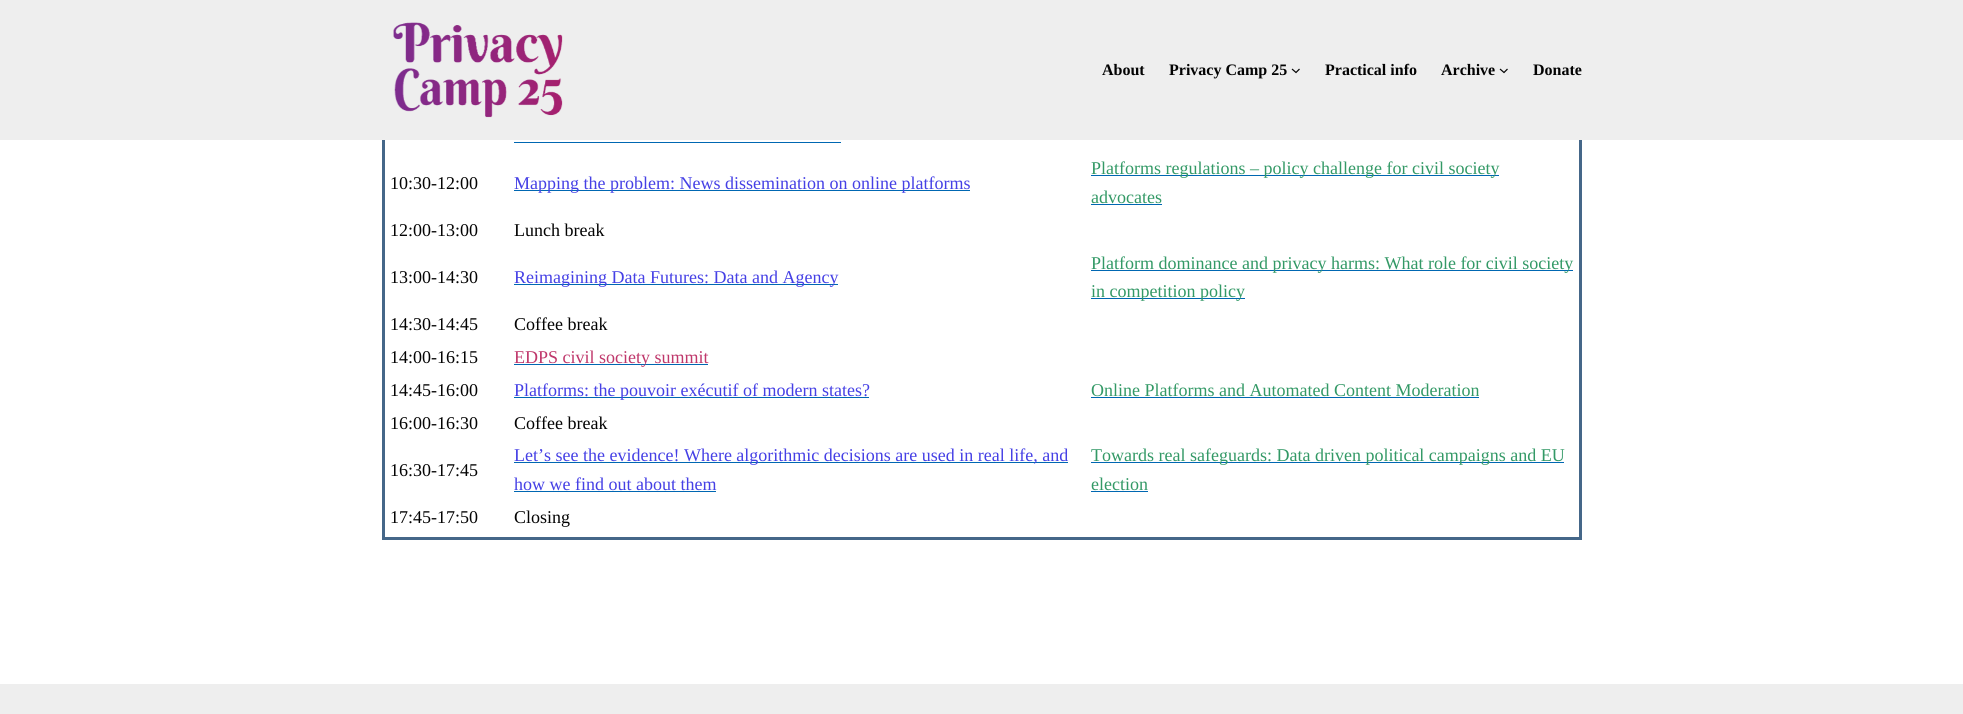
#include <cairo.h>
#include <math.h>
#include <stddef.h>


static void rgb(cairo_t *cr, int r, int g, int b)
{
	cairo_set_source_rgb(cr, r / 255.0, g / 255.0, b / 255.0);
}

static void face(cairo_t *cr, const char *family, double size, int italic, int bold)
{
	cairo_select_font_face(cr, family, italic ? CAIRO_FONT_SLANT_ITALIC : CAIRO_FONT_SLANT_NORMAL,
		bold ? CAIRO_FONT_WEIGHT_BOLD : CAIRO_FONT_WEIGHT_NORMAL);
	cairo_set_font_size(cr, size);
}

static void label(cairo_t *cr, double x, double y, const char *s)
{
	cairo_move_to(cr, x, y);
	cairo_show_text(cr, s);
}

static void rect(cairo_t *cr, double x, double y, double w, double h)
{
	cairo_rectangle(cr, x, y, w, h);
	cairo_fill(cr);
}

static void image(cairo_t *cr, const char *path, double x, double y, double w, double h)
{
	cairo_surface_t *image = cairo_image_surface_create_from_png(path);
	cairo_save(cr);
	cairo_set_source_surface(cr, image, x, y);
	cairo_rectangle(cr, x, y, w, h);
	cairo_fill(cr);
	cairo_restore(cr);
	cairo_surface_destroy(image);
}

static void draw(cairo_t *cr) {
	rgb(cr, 255, 255, 255);
	cairo_paint(cr);
	cairo_rectangle(cr, 383.5, 49.5, 1197, 489);
	rgb(cr, 69, 103, 137);
	cairo_set_line_width(cr, 3);
	cairo_stroke(cr);
	rgb(cr, 238, 238, 238);
	rect(cr, 0, 0, 1963, 140);
	image(cr, "image0.png", 393, 22, 170, 96);
	face(cr, "Liberation Serif", 16, 0, 1);
	rgb(cr, 3, 3, 3);
	label(cr, 1102, 75, "About");
	label(cr, 1169, 75, "Privacy Camp 25");
	cairo_new_path(cr);
	cairo_move_to(cr, 1292, 69);
	cairo_line_to(cr, 1296, 72.5);
	cairo_line_to(cr, 1299.5, 69);
	cairo_set_line_width(cr, 1.2);
	cairo_stroke(cr);
	label(cr, 1325, 75, "Practical info");
	label(cr, 1441, 75, "Archive");
	cairo_new_path(cr);
	cairo_move_to(cr, 1500, 69);
	cairo_line_to(cr, 1504, 72.5);
	cairo_line_to(cr, 1507.5, 69);
	cairo_stroke(cr);
	label(cr, 1533, 75, "Donate");
	rgb(cr, 0, 103, 178);
	rect(cr, 514, 142, 327, 1);
	face(cr, "Liberation Serif", 18, 0, 0);
	rgb(cr, 3, 3, 3);
	label(cr, 390, 189, "10:30-12:00");
	rgb(cr, 0, 103, 178);
	rect(cr, 514, 190, 456, 1);
	rgb(cr, 69, 64, 229);
	label(cr, 514, 189, "Mapping the problem: News dissemination on online platforms");
	rgb(cr, 0, 103, 178);
	rect(cr, 1091, 175, 408, 1);
	rgb(cr, 51, 153, 102);
	label(cr, 1091, 174, "Platforms regulations – policy challenge for civil society");
	label(cr, 1091, 203, "advocates");
	rgb(cr, 0, 103, 178);
	rect(cr, 1091, 204, 71, 1);
	rgb(cr, 3, 3, 3);
	label(cr, 390, 236, "12:00-13:00");
	label(cr, 514, 236, "Lunch break");
	label(cr, 390, 283, "13:00-14:30");
	rgb(cr, 0, 103, 178);
	rect(cr, 514, 284, 324, 1);
	rgb(cr, 69, 64, 229);
	label(cr, 514, 283, "Reimagining Data Futures: Data and Agency");
	rgb(cr, 0, 103, 178);
	rect(cr, 1091, 270, 482, 1);
	rgb(cr, 51, 153, 102);
	label(cr, 1091, 269, "Platform dominance and privacy harms: What role for civil society");
	rgb(cr, 0, 103, 178);
	rect(cr, 1091, 298, 154, 1);
	rgb(cr, 51, 153, 102);
	label(cr, 1091, 297, "in competition policy");
	rgb(cr, 3, 3, 3);
	label(cr, 390, 330, "14:30-14:45");
	label(cr, 514, 330, "Coffee break");
	label(cr, 390, 363, "14:00-16:15");
	rgb(cr, 0, 103, 178);
	rect(cr, 514, 364, 194, 1);
	rgb(cr, 191, 55, 107);
	label(cr, 514, 363, "EDPS civil society summit");
	rgb(cr, 3, 3, 3);
	label(cr, 390, 396, "14:45-16:00");
	rgb(cr, 0, 103, 178);
	rect(cr, 514, 397, 355, 1);
	rgb(cr, 69, 64, 229);
	label(cr, 514, 396, "Platforms: the pouvoir exécutif of modern states?");
	rgb(cr, 51, 153, 102);
	label(cr, 1091, 396, "Online Platforms and Automated Content Moderation");
	rgb(cr, 0, 103, 178);
	rect(cr, 1091, 397, 388, 1);
	rgb(cr, 3, 3, 3);
	label(cr, 390, 429, "16:00-16:30");
	label(cr, 514, 429, "Coffee break");
	label(cr, 390, 476, "16:30-17:45");
	rgb(cr, 0, 103, 178);
	rect(cr, 514, 462, 554, 1);
	rgb(cr, 69, 64, 229);
	label(cr, 514, 461, "Let’s see the evidence! Where algorithmic decisions are used in real life, and");
	label(cr, 514, 490, "how we find out about them");
	rgb(cr, 0, 103, 178);
	rect(cr, 514, 491, 202, 1);
	rect(cr, 1091, 462, 473, 1);
	rgb(cr, 51, 153, 102);
	label(cr, 1091, 461, "Towards real safeguards: Data driven political campaigns and EU");
	label(cr, 1091, 490, "election");
	rgb(cr, 0, 103, 178);
	rect(cr, 1091, 491, 57, 1);
	rgb(cr, 3, 3, 3);
	label(cr, 390, 523, "17:45-17:50");
	label(cr, 514, 523, "Closing");
	rgb(cr, 238, 238, 238);
	rect(cr, 0, 684, 1963, 30);
}

int main(void) {
	cairo_surface_t *surface = cairo_image_surface_create(CAIRO_FORMAT_RGB24, 1963, 714);
	cairo_t *cr = cairo_create(surface);
	cairo_font_options_t *options = cairo_font_options_create();
	cairo_font_options_set_hint_metrics(options, CAIRO_HINT_METRICS_OFF);
	cairo_font_options_set_hint_style(options, CAIRO_HINT_STYLE_NONE);
	cairo_set_font_options(cr, options);
	cairo_set_miter_limit(cr, 4);
	draw(cr);
	cairo_surface_write_to_png(surface, "render.png");
	cairo_font_options_destroy(options);
	cairo_destroy(cr);
	cairo_surface_destroy(surface);
	return 0;
}
